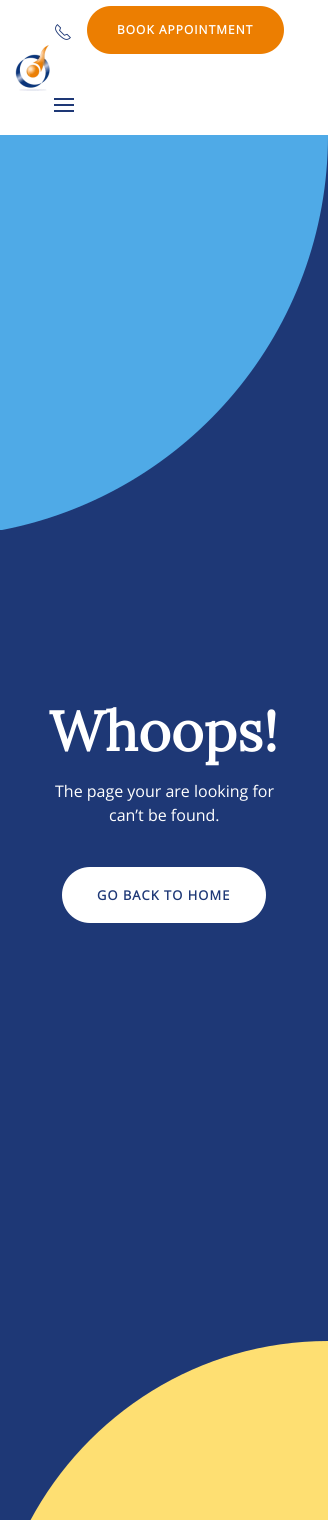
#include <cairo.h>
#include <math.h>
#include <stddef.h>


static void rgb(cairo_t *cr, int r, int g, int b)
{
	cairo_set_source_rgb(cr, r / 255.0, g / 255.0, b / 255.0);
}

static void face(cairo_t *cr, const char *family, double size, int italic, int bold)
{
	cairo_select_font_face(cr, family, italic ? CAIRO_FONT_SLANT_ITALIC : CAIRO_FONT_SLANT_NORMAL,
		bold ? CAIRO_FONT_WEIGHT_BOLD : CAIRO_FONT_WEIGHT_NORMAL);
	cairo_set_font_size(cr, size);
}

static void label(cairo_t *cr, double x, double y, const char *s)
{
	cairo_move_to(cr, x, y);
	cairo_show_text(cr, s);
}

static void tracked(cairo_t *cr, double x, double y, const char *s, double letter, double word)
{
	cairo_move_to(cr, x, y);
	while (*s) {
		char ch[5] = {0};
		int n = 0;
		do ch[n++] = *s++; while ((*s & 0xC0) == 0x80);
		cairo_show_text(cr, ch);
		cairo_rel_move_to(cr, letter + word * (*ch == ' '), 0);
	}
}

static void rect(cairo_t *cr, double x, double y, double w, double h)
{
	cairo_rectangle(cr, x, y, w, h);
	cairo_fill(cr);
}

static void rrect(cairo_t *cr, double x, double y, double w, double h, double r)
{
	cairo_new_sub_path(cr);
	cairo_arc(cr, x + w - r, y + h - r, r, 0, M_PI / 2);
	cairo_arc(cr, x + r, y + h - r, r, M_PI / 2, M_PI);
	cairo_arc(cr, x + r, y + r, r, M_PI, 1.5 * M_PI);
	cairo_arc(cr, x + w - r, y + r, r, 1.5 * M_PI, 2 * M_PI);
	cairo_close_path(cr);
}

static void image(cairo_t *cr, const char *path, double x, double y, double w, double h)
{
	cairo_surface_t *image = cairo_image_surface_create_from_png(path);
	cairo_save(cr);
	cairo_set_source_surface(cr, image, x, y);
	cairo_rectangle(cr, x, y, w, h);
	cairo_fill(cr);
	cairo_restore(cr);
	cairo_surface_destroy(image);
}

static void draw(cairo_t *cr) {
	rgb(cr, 255, 255, 255);
	cairo_paint(cr);
	image(cr, "image0.png", 55, 24, 16, 16);
	rgb(cr, 236, 126, 1);
	rrect(cr, 87, 6, 197, 48, 24);
	cairo_fill(cr);
	face(cr, "Open Sans", 12, 0, 1);
	rgb(cr, 255, 255, 255);
	tracked(cr, 117, 34, "BOOK APPOINTMENT", 1, 0);
	rgb(cr, 30, 56, 118);
	rect(cr, 54, 98, 20, 2);
	rect(cr, 54, 104, 20, 2);
	rect(cr, 54, 110, 20, 2);
	image(cr, "image1.png", 15, 45, 35, 46);
	rect(cr, 0, 136, 328, 1384);
	rgb(cr, 79, 170, 231);
	cairo_new_path(cr);
	cairo_move_to(cr, 2, 530);
	cairo_curve_to(cr, 188, 494, 328, 331, 328, 135);
	cairo_line_to(cr, 0, 135);
	cairo_line_to(cr, 0, 530);
	cairo_close_path(cr);
	cairo_fill(cr);
	face(cr, "Lora", 56, 0, 1);
	rgb(cr, 255, 255, 255);
	label(cr, 49, 751, "Whoops!");
	face(cr, "Open Sans", 16, 0, 0);
	label(cr, 55, 797, "The page your are looking for");
	label(cr, 109, 821, "can’t be found.");
	rrect(cr, 62, 867, 204, 56, 28);
	cairo_fill(cr);
	face(cr, "Open Sans", 13, 0, 1);
	rgb(cr, 30, 56, 118);
	tracked(cr, 97, 900, "GO BACK TO HOME", 1, 0);
	rgb(cr, 254, 223, 114);
	cairo_new_path(cr);
	cairo_move_to(cr, 30, 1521);
	cairo_line_to(cr, 328, 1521);
	cairo_line_to(cr, 328, 1341);
	cairo_curve_to(cr, 199, 1341, 87, 1414, 30, 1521);
	cairo_close_path(cr);
	cairo_fill(cr);
}

int main(void) {
	cairo_surface_t *surface = cairo_image_surface_create(CAIRO_FORMAT_RGB24, 328, 1520);
	cairo_t *cr = cairo_create(surface);
	cairo_font_options_t *options = cairo_font_options_create();
	cairo_font_options_set_hint_metrics(options, CAIRO_HINT_METRICS_OFF);
	cairo_font_options_set_hint_style(options, CAIRO_HINT_STYLE_NONE);
	cairo_set_font_options(cr, options);
	cairo_set_miter_limit(cr, 4);
	draw(cr);
	cairo_surface_write_to_png(surface, "render.png");
	cairo_font_options_destroy(options);
	cairo_destroy(cr);
	cairo_surface_destroy(surface);
	return 0;
}
